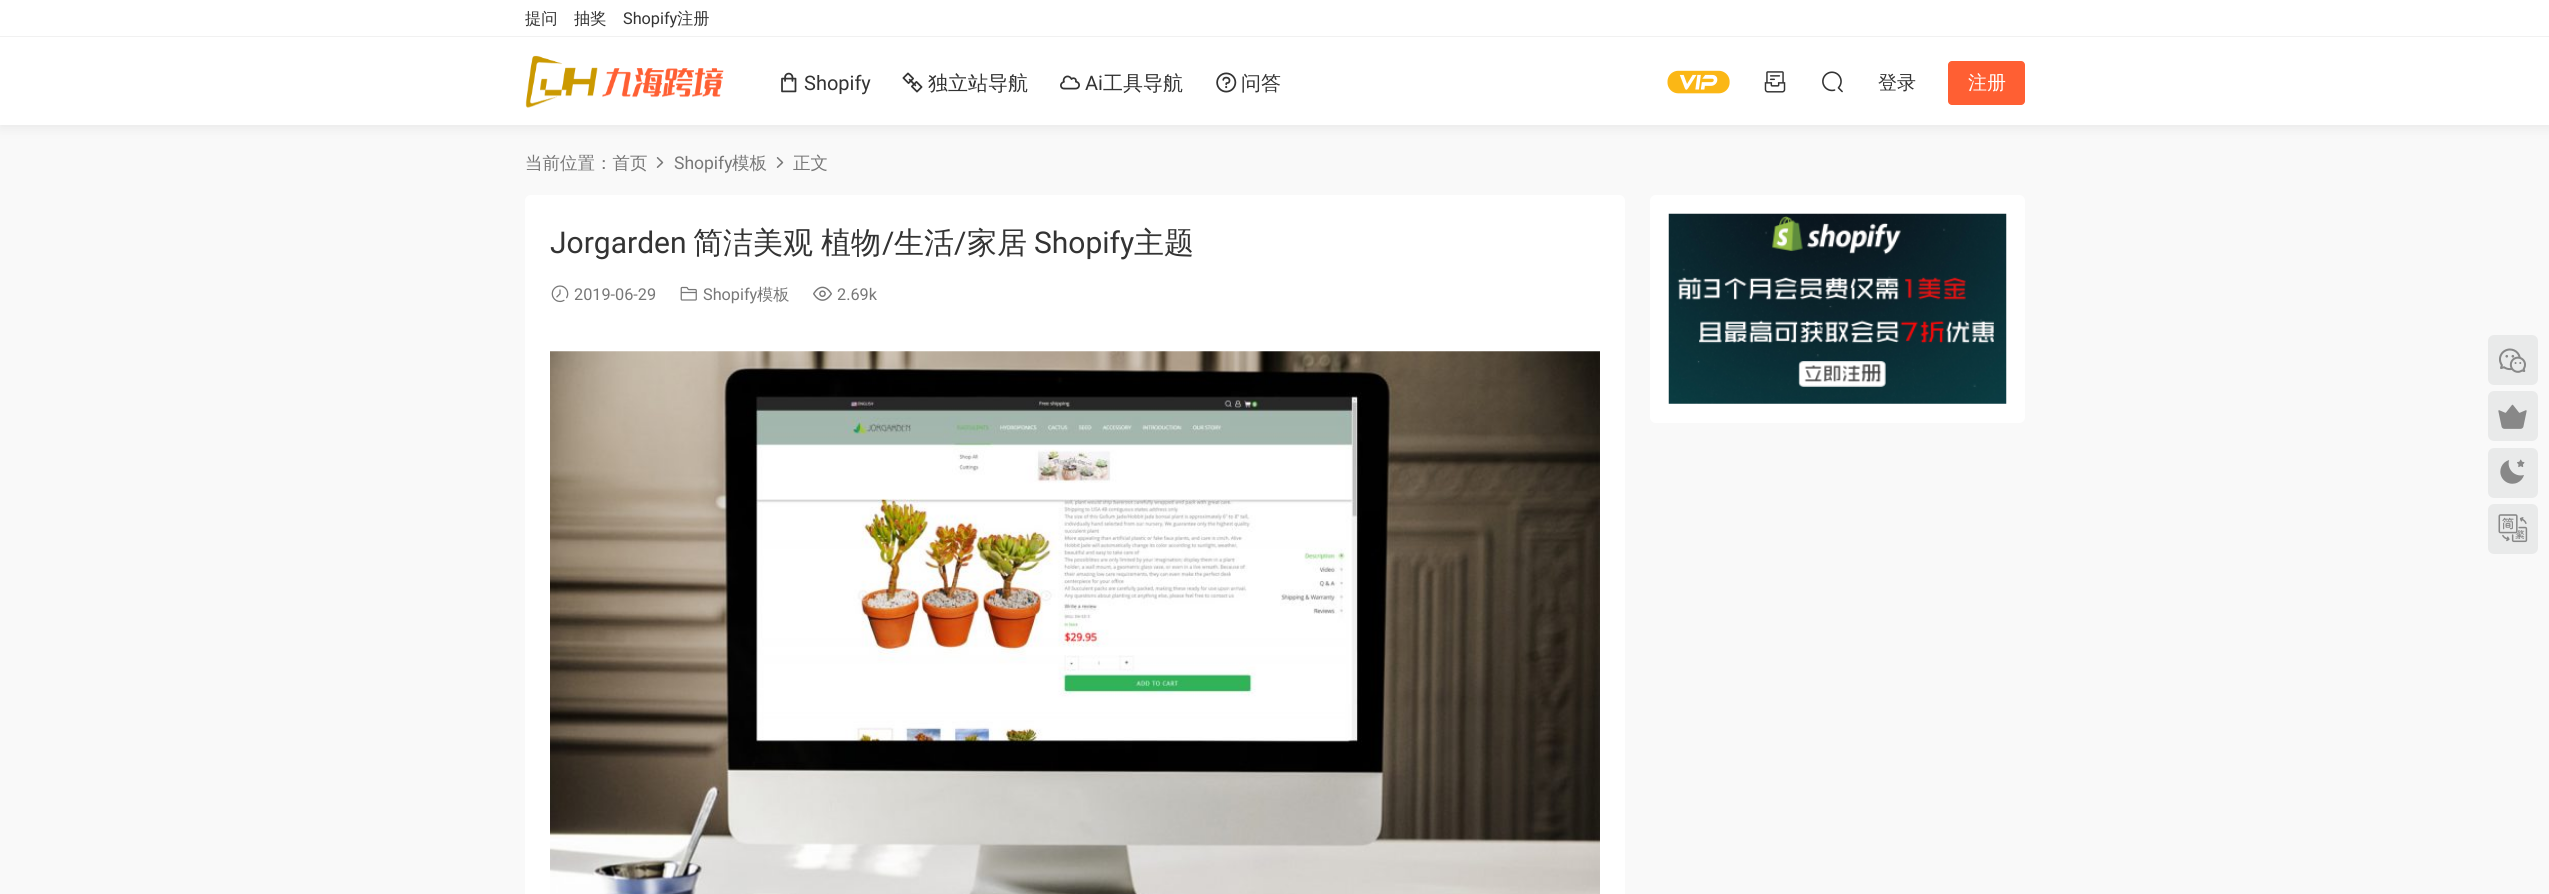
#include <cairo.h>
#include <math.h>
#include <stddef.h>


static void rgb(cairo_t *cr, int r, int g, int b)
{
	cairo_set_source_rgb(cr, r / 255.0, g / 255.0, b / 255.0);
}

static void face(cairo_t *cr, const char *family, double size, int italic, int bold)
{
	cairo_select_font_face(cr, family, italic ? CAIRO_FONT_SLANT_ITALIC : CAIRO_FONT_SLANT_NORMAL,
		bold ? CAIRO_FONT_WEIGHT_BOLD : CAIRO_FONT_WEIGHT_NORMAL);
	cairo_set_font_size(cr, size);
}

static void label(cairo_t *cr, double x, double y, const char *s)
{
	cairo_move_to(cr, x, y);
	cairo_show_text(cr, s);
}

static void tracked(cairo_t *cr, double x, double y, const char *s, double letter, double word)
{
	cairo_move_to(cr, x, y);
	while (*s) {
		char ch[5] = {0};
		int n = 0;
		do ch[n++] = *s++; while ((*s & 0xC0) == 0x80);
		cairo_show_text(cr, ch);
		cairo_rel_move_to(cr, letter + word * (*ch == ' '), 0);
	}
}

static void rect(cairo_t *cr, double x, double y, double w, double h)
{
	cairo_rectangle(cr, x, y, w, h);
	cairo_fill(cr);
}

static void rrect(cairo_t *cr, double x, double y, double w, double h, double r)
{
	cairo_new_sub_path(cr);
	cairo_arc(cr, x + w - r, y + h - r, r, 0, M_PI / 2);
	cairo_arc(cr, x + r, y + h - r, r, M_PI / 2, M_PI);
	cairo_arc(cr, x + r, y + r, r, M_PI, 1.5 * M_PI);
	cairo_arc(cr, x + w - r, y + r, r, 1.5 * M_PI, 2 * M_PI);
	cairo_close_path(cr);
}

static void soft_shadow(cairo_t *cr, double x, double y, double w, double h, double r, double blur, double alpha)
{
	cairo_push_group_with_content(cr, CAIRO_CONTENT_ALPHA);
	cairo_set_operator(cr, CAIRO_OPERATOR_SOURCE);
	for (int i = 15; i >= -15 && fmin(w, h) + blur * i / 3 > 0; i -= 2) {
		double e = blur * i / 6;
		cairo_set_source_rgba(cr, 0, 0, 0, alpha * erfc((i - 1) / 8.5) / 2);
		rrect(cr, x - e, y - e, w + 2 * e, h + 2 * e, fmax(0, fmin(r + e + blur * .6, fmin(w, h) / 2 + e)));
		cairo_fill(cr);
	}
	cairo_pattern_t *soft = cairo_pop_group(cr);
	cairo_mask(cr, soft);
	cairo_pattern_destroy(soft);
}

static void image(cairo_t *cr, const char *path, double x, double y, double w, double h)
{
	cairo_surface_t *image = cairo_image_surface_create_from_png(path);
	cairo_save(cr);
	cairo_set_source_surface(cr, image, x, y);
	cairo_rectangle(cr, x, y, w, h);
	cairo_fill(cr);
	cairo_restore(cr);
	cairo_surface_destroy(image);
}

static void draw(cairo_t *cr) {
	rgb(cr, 249, 249, 249);
	cairo_paint(cr);
	rgb(cr, 78, 82, 84);
	soft_shadow(cr, 0, 40, 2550, 88, 0, 6, 0.1);
	rgb(cr, 255, 255, 255);
	rect(cr, 0, 0, 2549, 125);
	rgb(cr, 241, 241, 241);
	rect(cr, 0, 36, 2549, 1);
	face(cr, "WenQuanYi Zen Hei Medium", 16.25, 0, 0);
	rgb(cr, 51, 51, 51);
	label(cr, 525, 24, "提问");
	label(cr, 574, 24, "抽奖");
	face(cr, "Roboto", 16.25, 0, 0);
	label(cr, 623, 24, "Shopify");
	face(cr, "WenQuanYi Zen Hei Medium", 16.25, 0, 0);
	label(cr, 677, 24, "注册");
	image(cr, "image0.png", 525, 55, 199, 53);
	image(cr, "image1.png", 781, 72, 16, 21);
	face(cr, "Roboto", 20, 0, 0);
	label(cr, 804, 90, "Shopify");
	image(cr, "image2.png", 902, 72, 21, 21);
	face(cr, "WenQuanYi Zen Hei Medium", 20, 0, 0);
	label(cr, 928, 90, "独立站导航");
	image(cr, "image3.png", 1060, 75, 20, 15);
	face(cr, "Roboto", 20, 0, 0);
	label(cr, 1085, 90, "Ai");
	face(cr, "WenQuanYi Zen Hei Medium", 20, 0, 0);
	label(cr, 1103, 90, "工具导航");
	image(cr, "image4.png", 1216, 72, 21, 21);
	label(cr, 1241, 90, "问答");
	image(cr, "image5.png", 1667, 70, 63, 24);
	image(cr, "image6.png", 1764, 71, 22, 22);
	image(cr, "image7.png", 1822, 71, 21, 22);
	face(cr, "WenQuanYi Zen Hei Medium", 19, 0, 0);
	label(cr, 1878, 89, "登录");
	rgb(cr, 255, 95, 51);
	rrect(cr, 1948, 61, 77, 44, 4);
	cairo_fill(cr);
	rgb(cr, 255, 255, 255);
	label(cr, 1968, 89, "注册");
	face(cr, "WenQuanYi Zen Hei Medium", 17.5, 0, 0);
	rgb(cr, 119, 119, 119);
	label(cr, 525, 169, "当前位置：首页");
	image(cr, "image8.png", 656, 157, 8, 11);
	face(cr, "Roboto", 17.5, 0, 0);
	label(cr, 674, 169, "Shopify");
	face(cr, "WenQuanYi Zen Hei Medium", 17.5, 0, 0);
	label(cr, 732, 169, "模板");
	image(cr, "image8.png", 776, 157, 8, 11);
	label(cr, 793, 169, "正文");
	rgb(cr, 255, 255, 255);
	rrect(cr, 525, 195, 1100, 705, 6);
	cairo_fill(cr);
	face(cr, "Roboto", 30, 0, 0);
	rgb(cr, 51, 51, 51);
	label(cr, 550, 253, "Jorgarden");
	face(cr, "WenQuanYi Zen Hei Medium", 30, 0, 0);
	tracked(cr, 693, 253, "简洁美观 植物", 0, -1);
	face(cr, "Roboto", 30, 0, 0);
	label(cr, 882, 253, "/");
	face(cr, "WenQuanYi Zen Hei Medium", 30, 0, 0);
	label(cr, 894, 253, "生活");
	face(cr, "Roboto", 30, 0, 0);
	label(cr, 954, 253, "/");
	face(cr, "WenQuanYi Zen Hei Medium", 30, 0, 0);
	label(cr, 967, 253, "家居");
	face(cr, "Roboto", 30, 0, 0);
	label(cr, 1034, 253, "Shopify");
	face(cr, "WenQuanYi Zen Hei Medium", 30, 0, 0);
	label(cr, 1134, 253, "主题");
	image(cr, "image9.png", 551, 285, 18, 18);
	face(cr, "Roboto", 16.25, 0, 0);
	rgb(cr, 119, 119, 119);
	label(cr, 574, 300, "2019-06-29");
	image(cr, "image10.png", 680, 286, 17, 15);
	label(cr, 703, 300, "Shopify");
	face(cr, "WenQuanYi Zen Hei Medium", 16.25, 0, 0);
	label(cr, 757, 300, "模板");
	image(cr, "image11.png", 813, 286, 19, 15);
	face(cr, "Roboto", 16.25, 0, 0);
	label(cr, 837, 300, "2.69k");
	image(cr, "image12.png", 550, 351, 1050, 543);
	rgb(cr, 255, 255, 255);
	rrect(cr, 1650, 195, 375, 228, 6);
	cairo_fill(cr);
	image(cr, "image13.png", 1668, 213, 339, 191);
	rgb(cr, 233, 234, 234);
	rrect(cr, 2488, 335, 50, 50, 6);
	cairo_fill(cr);
	image(cr, "image14.png", 2499, 348, 27, 25);
	rrect(cr, 2488, 391, 50, 50, 6);
	cairo_fill(cr);
	image(cr, "image15.png", 2498, 404, 29, 25);
	rrect(cr, 2488, 448, 50, 50, 6);
	cairo_fill(cr);
	image(cr, "image16.png", 2500, 459, 25, 25);
	rrect(cr, 2488, 504, 50, 50, 6);
	cairo_fill(cr);
	image(cr, "image17.png", 2498, 514, 30, 29);
}

int main(void) {
	cairo_surface_t *surface = cairo_image_surface_create(CAIRO_FORMAT_RGB24, 2549, 894);
	cairo_t *cr = cairo_create(surface);
	cairo_font_options_t *options = cairo_font_options_create();
	cairo_font_options_set_hint_metrics(options, CAIRO_HINT_METRICS_OFF);
	cairo_font_options_set_hint_style(options, CAIRO_HINT_STYLE_NONE);
	cairo_set_font_options(cr, options);
	cairo_set_miter_limit(cr, 4);
	draw(cr);
	cairo_surface_write_to_png(surface, "render.png");
	cairo_font_options_destroy(options);
	cairo_destroy(cr);
	cairo_surface_destroy(surface);
	return 0;
}
